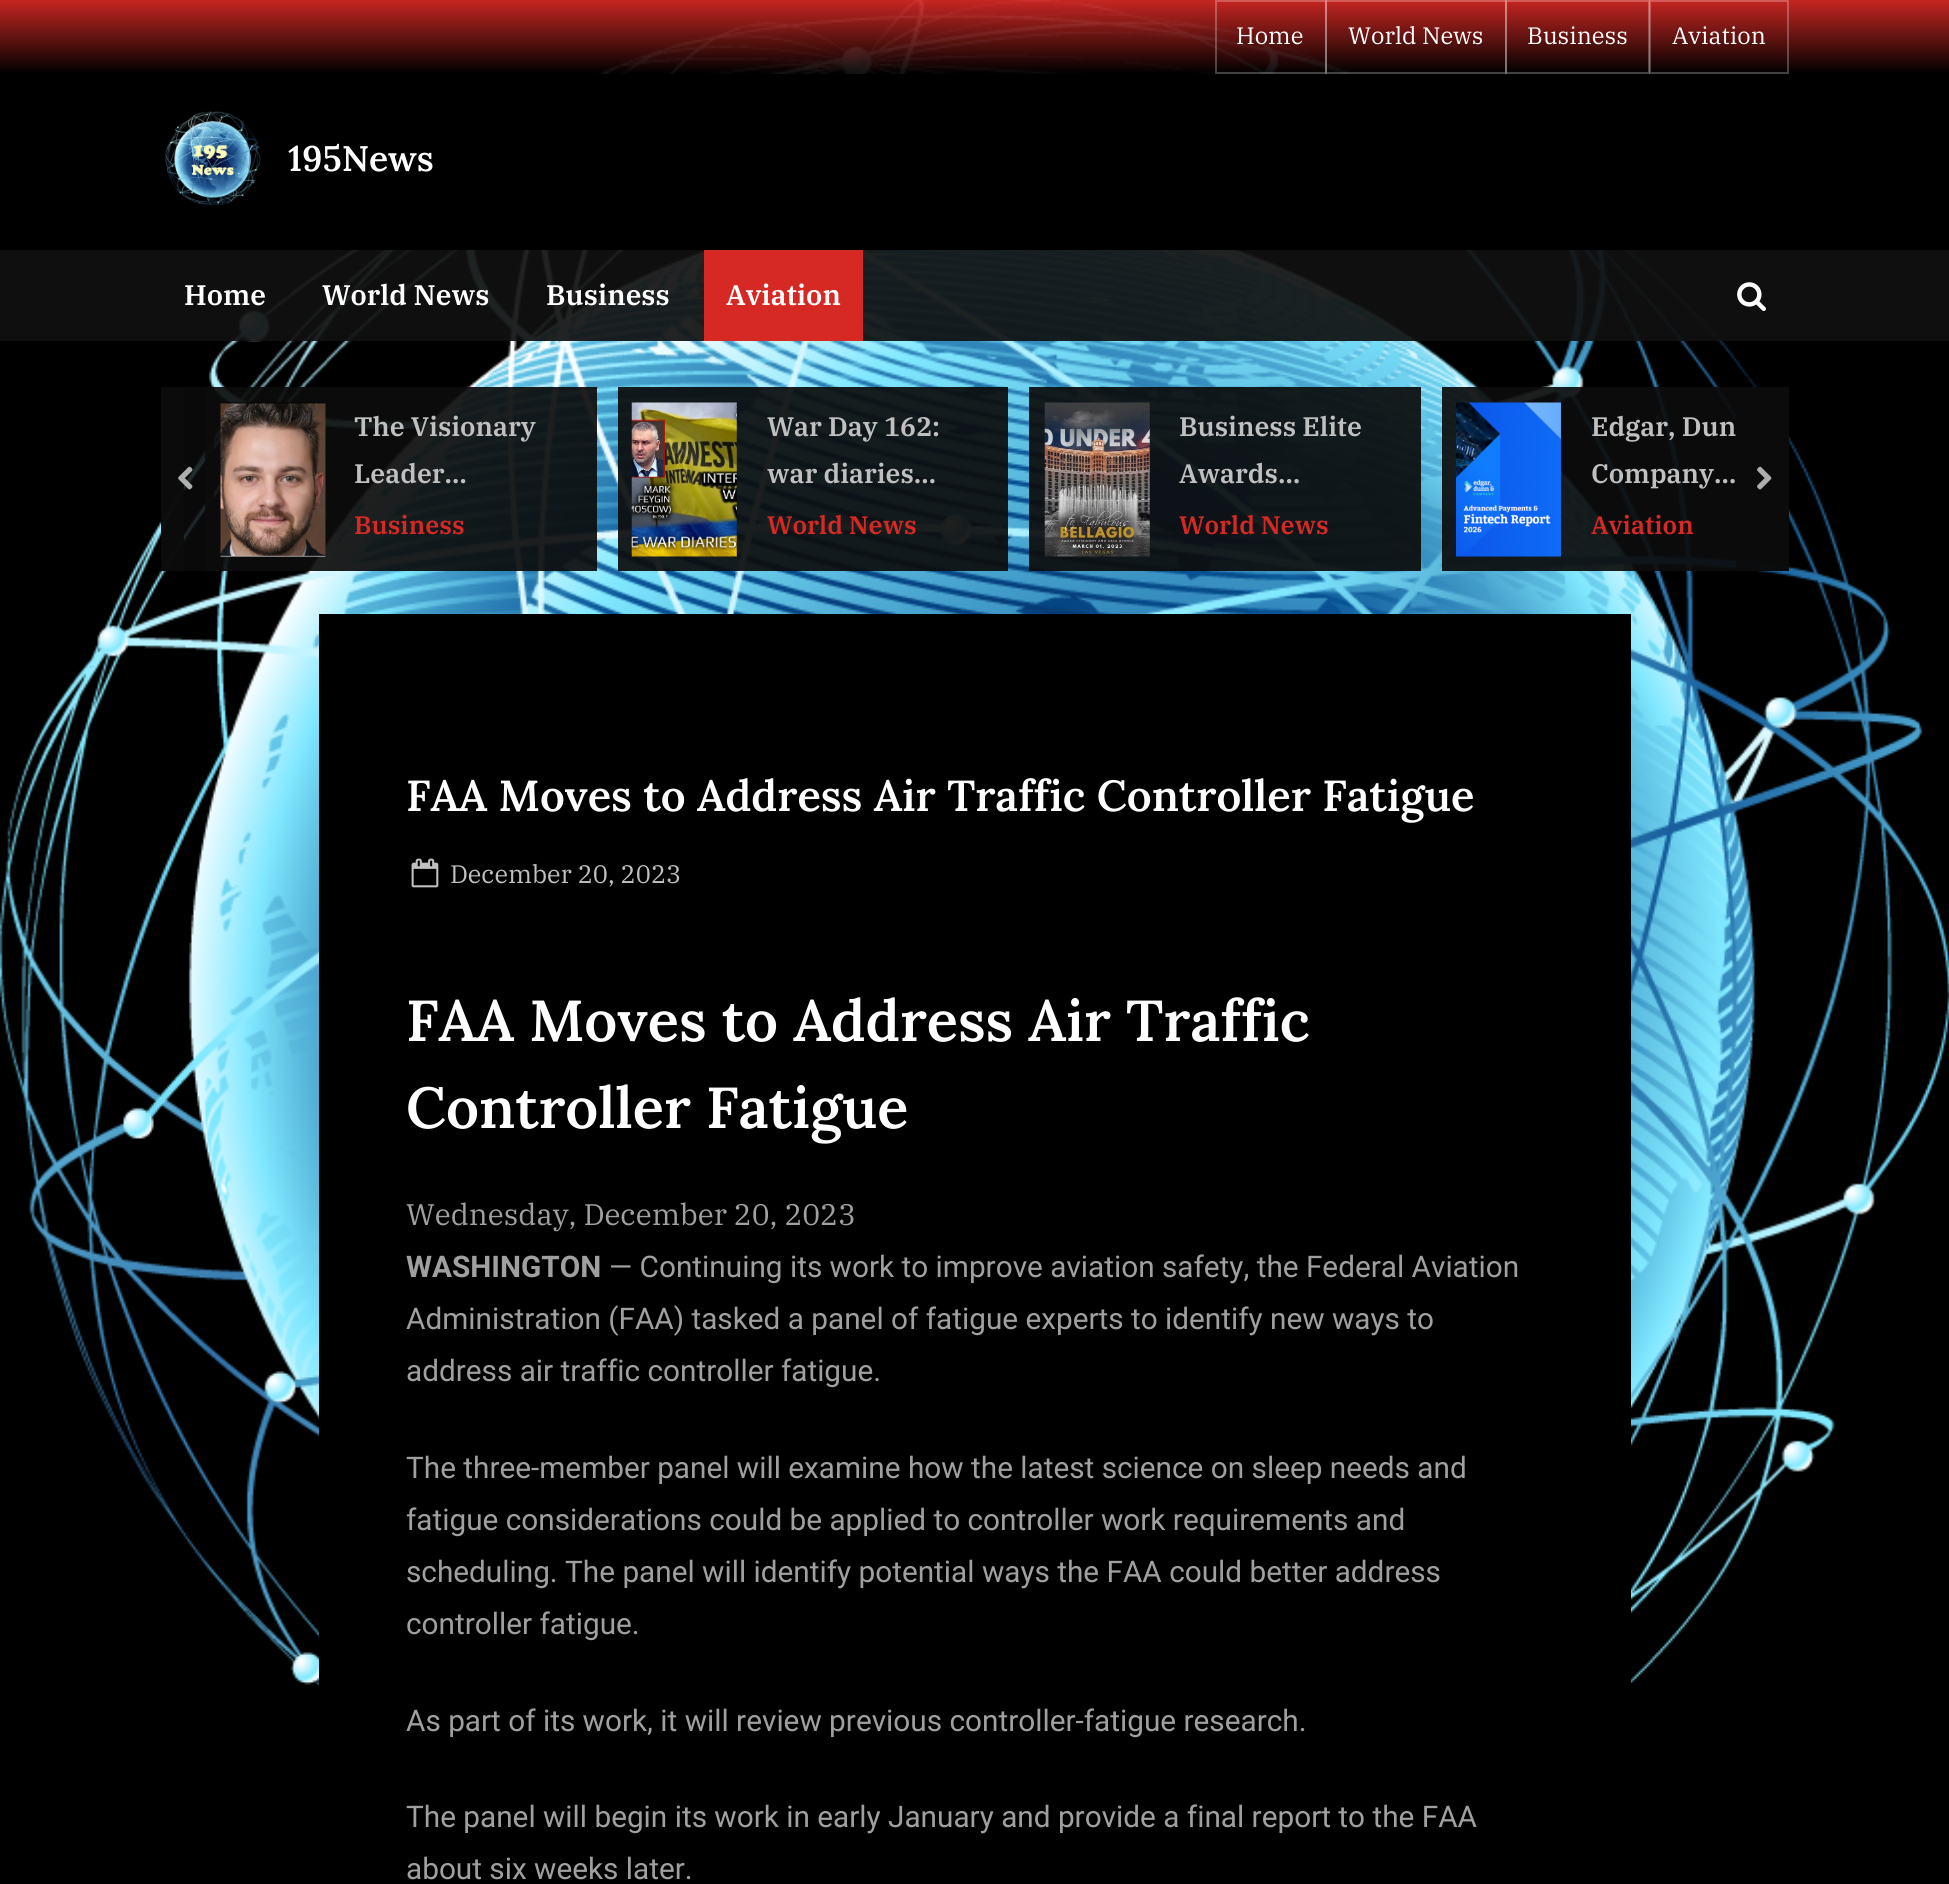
#include <cairo.h>
#include <math.h>
#include <stddef.h>


static void rgb(cairo_t *cr, int r, int g, int b)
{
	cairo_set_source_rgb(cr, r / 255.0, g / 255.0, b / 255.0);
}

static void face(cairo_t *cr, const char *family, double size, int italic, int bold)
{
	cairo_select_font_face(cr, family, italic ? CAIRO_FONT_SLANT_ITALIC : CAIRO_FONT_SLANT_NORMAL,
		bold ? CAIRO_FONT_WEIGHT_BOLD : CAIRO_FONT_WEIGHT_NORMAL);
	cairo_set_font_size(cr, size);
}

static void label(cairo_t *cr, double x, double y, const char *s)
{
	cairo_move_to(cr, x, y);
	cairo_show_text(cr, s);
}

static void rect(cairo_t *cr, double x, double y, double w, double h)
{
	cairo_rectangle(cr, x, y, w, h);
	cairo_fill(cr);
}

static void image(cairo_t *cr, const char *path, double x, double y, double w, double h)
{
	cairo_surface_t *image = cairo_image_surface_create_from_png(path);
	cairo_save(cr);
	cairo_set_source_surface(cr, image, x, y);
	cairo_rectangle(cr, x, y, w, h);
	cairo_fill(cr);
	cairo_restore(cr);
	cairo_surface_destroy(image);
}

static void draw(cairo_t *cr) {
	cairo_pattern_t *gradient;
	rgb(cr, 0, 0, 0);
	cairo_paint(cr);
	image(cr, "image0.png", 0, 0, 1949, 1687);
	gradient = cairo_pattern_create_linear(975, 74, 975, 0);
	cairo_pattern_add_color_stop_rgba(gradient, 0, 0, 0, 0, 0.92);
	cairo_pattern_add_color_stop_rgba(gradient, 1, 0.843, 0.161, 0.141, 0.92);
	cairo_set_source(cr, gradient);
	cairo_pattern_destroy(gradient);
	rect(cr, 0, 0, 1949, 74);
	cairo_rectangle(cr, 1216, 1, 110, 72);
	cairo_set_source_rgba(cr, 1, 1, 1, 0.25);
	cairo_stroke(cr);
	face(cr, "IBM Plex Serif", 23.75, 0, 0);
	rgb(cr, 255, 255, 255);
	label(cr, 1236, 44, "Home");
	cairo_rectangle(cr, 1326, 1, 180, 72);
	cairo_set_source_rgba(cr, 1, 1, 1, 0.25);
	cairo_stroke(cr);
	rgb(cr, 255, 255, 255);
	label(cr, 1348, 44, "World News");
	cairo_rectangle(cr, 1506, 1, 143, 72);
	cairo_set_source_rgba(cr, 1, 1, 1, 0.25);
	cairo_stroke(cr);
	rgb(cr, 255, 255, 255);
	label(cr, 1527, 44, "Business");
	cairo_rectangle(cr, 1650, 1, 138, 72);
	cairo_set_source_rgba(cr, 1, 1, 1, 0.25);
	cairo_stroke(cr);
	rgb(cr, 255, 255, 255);
	label(cr, 1672, 44, "Aviation");
	rgb(cr, 0, 0, 0);
	rect(cr, 350, 74, 1279, 176);
	image(cr, "image1.png", 165, 111, 96, 95);
	face(cr, "Lora SemiBold", 35.5, 0, 0);
	rgb(cr, 255, 255, 255);
	label(cr, 288, 171, "195News");
	cairo_set_source_rgba(cr, 0.067, 0.067, 0.067, 0.92);
	rect(cr, 0, 250, 1949, 91);
	face(cr, "IBM Plex Serif SemiBold", 28.25, 0, 0);
	rgb(cr, 255, 255, 255);
	label(cr, 184, 305, "Home");
	label(cr, 322, 305, "World News");
	label(cr, 546, 305, "Business");
	rgb(cr, 215, 41, 36);
	rect(cr, 704, 250, 159, 91);
	rgb(cr, 255, 255, 255);
	label(cr, 726, 305, "Aviation");
	image(cr, "image2.png", 1737, 282, 29, 29);
	cairo_set_source_rgba(cr, 0.047, 0.047, 0.047, 0.92);
	rect(cr, 161, 387, 23, 184);
	rect(cr, 205, 387, 392, 184);
	cairo_set_source_rgba(cr, 0.047, 0.047, 0.047, 0.83);
	rect(cr, 161, 387, 53, 184);
	image(cr, "image3.png", 178, 466, 15, 24);
	cairo_set_source_rgba(cr, 0.047, 0.047, 0.047, 0.92);
	rect(cr, 1442, 387, 347, 184);
	cairo_set_source_rgba(cr, 0.047, 0.047, 0.047, 0.83);
	rect(cr, 1736, 387, 53, 184);
	image(cr, "image4.png", 1757, 466, 15, 24);
	image(cr, "image5.png", 220, 402, 106, 155);
	face(cr, "IBM Plex Serif SemiBold", 26.75, 0, 0);
	rgb(cr, 192, 192, 192);
	label(cr, 354, 436, "The Visionary");
	label(cr, 354, 483, "Leader…");
	face(cr, "IBM Plex Serif SemiBold", 25.25, 0, 0);
	rgb(cr, 215, 41, 36);
	label(cr, 354, 534, "Business");
	cairo_set_source_rgba(cr, 0.047, 0.047, 0.047, 0.92);
	rect(cr, 618, 387, 390, 184);
	image(cr, "image6.png", 631, 402, 106, 155);
	face(cr, "IBM Plex Serif SemiBold", 26.75, 0, 0);
	rgb(cr, 192, 192, 192);
	label(cr, 767, 436, "War Day 162:");
	label(cr, 767, 483, "war diaries…");
	face(cr, "IBM Plex Serif SemiBold", 25.25, 0, 0);
	rgb(cr, 215, 41, 36);
	label(cr, 767, 534, "World News");
	cairo_set_source_rgba(cr, 0.047, 0.047, 0.047, 0.92);
	rect(cr, 1029, 387, 392, 184);
	image(cr, "image7.png", 1044, 402, 106, 155);
	cairo_save(cr);
	cairo_rectangle(cr, 1180, 403, 203, 94);
	cairo_clip(cr);
	face(cr, "IBM Plex Serif SemiBold", 26.75, 0, 0);
	rgb(cr, 192, 192, 192);
	label(cr, 1179, 436, "Business Elite");
	cairo_restore(cr);
	face(cr, "IBM Plex Serif SemiBold", 26.75, 0, 0);
	rgb(cr, 192, 192, 192);
	label(cr, 1179, 483, "Awards…");
	face(cr, "IBM Plex Serif SemiBold", 25.25, 0, 0);
	rgb(cr, 215, 41, 36);
	label(cr, 1179, 534, "World News");
	image(cr, "image8.png", 1456, 402, 105, 155);
	face(cr, "IBM Plex Serif SemiBold", 26.75, 0, 0);
	rgb(cr, 192, 192, 192);
	label(cr, 1591, 436, "Edgar, Dun");
	label(cr, 1591, 483, "Company…");
	face(cr, "IBM Plex Serif SemiBold", 25.25, 0, 0);
	rgb(cr, 215, 41, 36);
	label(cr, 1591, 534, "Aviation");
	rgb(cr, 0, 0, 0);
	rect(cr, 319, 614, 1312, 1073);
	face(cr, "Lora SemiBold", 43.4, 0, 0);
	rgb(cr, 255, 255, 255);
	label(cr, 406, 811, "FAA Moves to Address Air Traffic Controller Fatigue");
	image(cr, "image9.png", 411, 858, 28, 30);
	face(cr, "IBM Plex Serif", 25.25, 0, 0);
	rgb(cr, 192, 192, 192);
	label(cr, 450, 883, "December 20, 2023");
	face(cr, "Lora SemiBold", 57.75, 0, 0);
	rgb(cr, 255, 255, 255);
	label(cr, 406, 1041, "FAA Moves to Address Air Traffic");
	label(cr, 406, 1128, "Controller Fatigue");
	face(cr, "IBM Plex Serif", 29.75, 0, 0);
	rgb(cr, 160, 160, 160);
	label(cr, 406, 1225, "Wednesday, December 20, 2023");
	face(cr, "Roboto", 29.75, 0, 1);
	label(cr, 406, 1277, "WASHINGTON");
	face(cr, "Roboto", 29.75, 0, 0);
	label(cr, 609, 1277, "— Continuing its work to improve aviation safety, the Federal Aviation");
	label(cr, 406, 1329, "Administration (FAA) tasked a panel of fatigue experts to identify new ways to");
	label(cr, 406, 1381, "address air traffic controller fatigue.");
	label(cr, 406, 1478, "The three-member panel will examine how the latest science on sleep needs and");
	label(cr, 406, 1530, "fatigue considerations could be applied to controller work requirements and");
	label(cr, 406, 1582, "scheduling. The panel will identify potential ways the FAA could better address");
	label(cr, 406, 1634, "controller fatigue.");
	label(cr, 406, 1731, "As part of its work, it will review previous controller-fatigue research.");
	label(cr, 406, 1827, "The panel will begin its work in early January and provide a final report to the FAA");
	label(cr, 406, 1879, "about six weeks later.");
}

int main(void) {
	cairo_surface_t *surface = cairo_image_surface_create(CAIRO_FORMAT_RGB24, 1949, 1884);
	cairo_t *cr = cairo_create(surface);
	cairo_font_options_t *options = cairo_font_options_create();
	cairo_font_options_set_hint_metrics(options, CAIRO_HINT_METRICS_OFF);
	cairo_font_options_set_hint_style(options, CAIRO_HINT_STYLE_NONE);
	cairo_set_font_options(cr, options);
	cairo_set_miter_limit(cr, 4);
	draw(cr);
	cairo_surface_write_to_png(surface, "render.png");
	cairo_font_options_destroy(options);
	cairo_destroy(cr);
	cairo_surface_destroy(surface);
	return 0;
}
